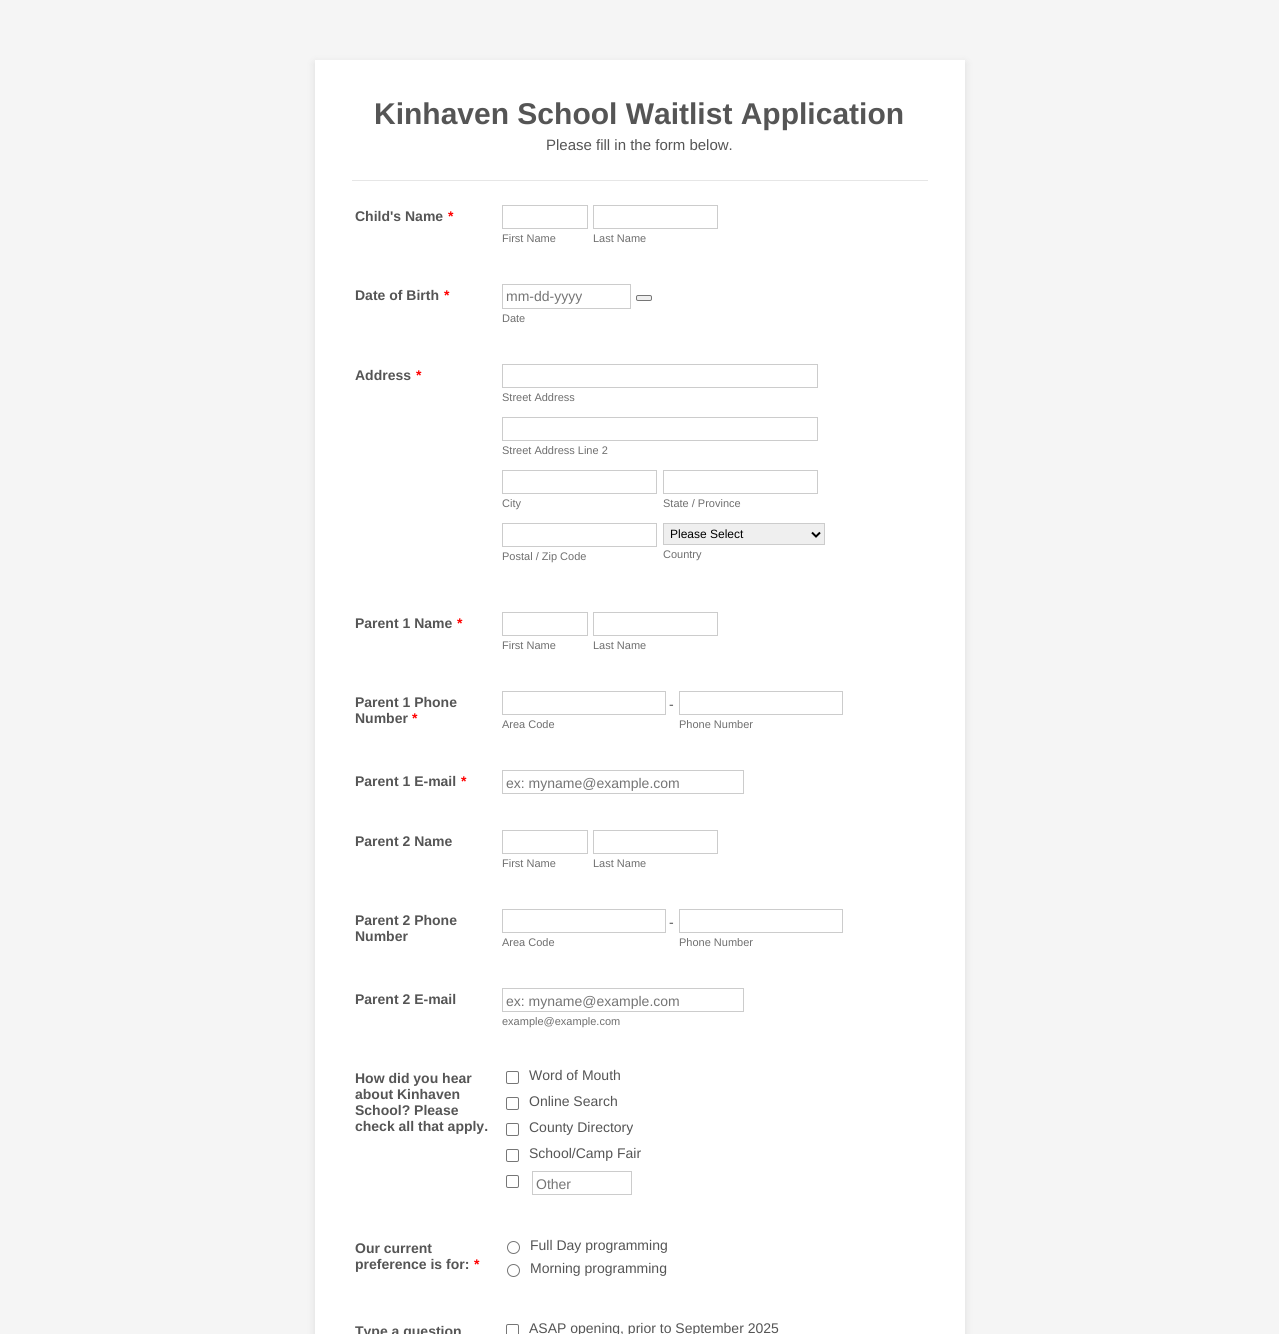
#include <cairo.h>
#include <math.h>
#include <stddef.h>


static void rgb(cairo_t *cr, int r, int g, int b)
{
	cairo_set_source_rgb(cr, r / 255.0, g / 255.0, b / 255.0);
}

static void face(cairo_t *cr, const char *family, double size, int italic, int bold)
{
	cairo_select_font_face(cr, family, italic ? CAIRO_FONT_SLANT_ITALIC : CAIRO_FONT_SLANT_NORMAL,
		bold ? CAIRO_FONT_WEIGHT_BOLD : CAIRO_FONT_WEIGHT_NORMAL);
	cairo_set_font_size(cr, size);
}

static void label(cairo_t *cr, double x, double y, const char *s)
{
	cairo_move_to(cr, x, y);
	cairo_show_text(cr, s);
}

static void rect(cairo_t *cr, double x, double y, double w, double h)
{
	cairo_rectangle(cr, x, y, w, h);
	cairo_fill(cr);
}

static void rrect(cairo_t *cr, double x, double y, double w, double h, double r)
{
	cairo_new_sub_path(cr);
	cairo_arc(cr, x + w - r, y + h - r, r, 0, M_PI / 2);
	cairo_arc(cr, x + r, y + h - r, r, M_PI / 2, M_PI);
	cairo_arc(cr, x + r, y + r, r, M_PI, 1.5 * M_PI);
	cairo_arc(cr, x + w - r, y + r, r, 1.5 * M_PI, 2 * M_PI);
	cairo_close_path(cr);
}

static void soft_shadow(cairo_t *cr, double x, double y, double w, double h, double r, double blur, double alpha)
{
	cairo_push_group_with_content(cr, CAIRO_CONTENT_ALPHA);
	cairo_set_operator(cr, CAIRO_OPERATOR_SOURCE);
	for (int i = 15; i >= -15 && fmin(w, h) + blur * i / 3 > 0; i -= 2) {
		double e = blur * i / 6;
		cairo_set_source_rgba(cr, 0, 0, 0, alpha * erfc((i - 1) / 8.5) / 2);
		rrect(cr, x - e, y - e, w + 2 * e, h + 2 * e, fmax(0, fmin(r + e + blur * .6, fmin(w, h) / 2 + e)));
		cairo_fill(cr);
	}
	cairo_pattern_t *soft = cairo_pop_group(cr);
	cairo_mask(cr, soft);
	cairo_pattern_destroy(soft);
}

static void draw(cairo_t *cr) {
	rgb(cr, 245, 245, 245);
	cairo_paint(cr);
	rgb(cr, 0, 0, 0);
	soft_shadow(cr, 315, 63, 650, 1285, 0, 4.5, 0.1);
	rgb(cr, 255, 255, 255);
	rect(cr, 315, 60, 650, 1274);
	rgb(cr, 230, 230, 230);
	rect(cr, 352, 180, 576, 1);
	face(cr, "Liberation Sans", 30, 0, 1);
	rgb(cr, 85, 85, 85);
	label(cr, 374, 124, "Kinhaven School Waitlist Application");
	face(cr, "Liberation Sans", 15, 0, 0);
	label(cr, 546, 150, "Please fill in the form below.");
	face(cr, "Liberation Sans", 14, 0, 1);
	label(cr, 355, 221, "Child's Name");
	rgb(cr, 255, 0, 0);
	label(cr, 448, 221, "*");
	cairo_rectangle(cr, 502.5, 205.5, 85, 23);
	rgb(cr, 204, 204, 204);
	cairo_set_line_width(cr, 1);
	cairo_stroke(cr);
	face(cr, "Liberation Sans", 11, 0, 0);
	rgb(cr, 111, 111, 111);
	label(cr, 502, 242, "First Name");
	cairo_rectangle(cr, 593.5, 205.5, 124, 23);
	rgb(cr, 204, 204, 204);
	cairo_stroke(cr);
	rgb(cr, 111, 111, 111);
	label(cr, 593, 242, "Last Name");
	face(cr, "Liberation Sans", 14, 0, 1);
	rgb(cr, 85, 85, 85);
	label(cr, 355, 300, "Date of Birth");
	rgb(cr, 255, 0, 0);
	label(cr, 444, 300, "*");
	cairo_rectangle(cr, 502.5, 284.5, 128, 24);
	rgb(cr, 204, 204, 204);
	cairo_stroke(cr);
	face(cr, "Liberation Sans", 14, 0, 0);
	rgb(cr, 117, 117, 117);
	label(cr, 506, 301, "mm-dd-yyyy");
	rgb(cr, 239, 239, 239);
	rrect(cr, 636.5, 295.5, 15, 5, 1.5);
	cairo_fill_preserve(cr);
	rgb(cr, 118, 118, 118);
	cairo_stroke(cr);
	face(cr, "Liberation Sans", 11, 0, 0);
	rgb(cr, 111, 111, 111);
	label(cr, 502, 322, "Date");
	face(cr, "Liberation Sans", 14, 0, 1);
	rgb(cr, 85, 85, 85);
	label(cr, 355, 380, "Address");
	rgb(cr, 255, 0, 0);
	label(cr, 416, 380, "*");
	cairo_rectangle(cr, 502.5, 364.5, 315, 23);
	rgb(cr, 204, 204, 204);
	cairo_stroke(cr);
	face(cr, "Liberation Sans", 11, 0, 0);
	rgb(cr, 111, 111, 111);
	label(cr, 502, 401, "Street Address");
	cairo_rectangle(cr, 502.5, 417.5, 315, 23);
	rgb(cr, 204, 204, 204);
	cairo_stroke(cr);
	rgb(cr, 111, 111, 111);
	label(cr, 502, 454, "Street Address Line 2");
	cairo_rectangle(cr, 502.5, 470.5, 154, 23);
	rgb(cr, 204, 204, 204);
	cairo_stroke(cr);
	rgb(cr, 111, 111, 111);
	label(cr, 502, 507, "City");
	cairo_rectangle(cr, 663.5, 470.5, 154, 23);
	rgb(cr, 204, 204, 204);
	cairo_stroke(cr);
	rgb(cr, 111, 111, 111);
	label(cr, 663, 507, "State / Province");
	cairo_rectangle(cr, 502.5, 523.5, 154, 23);
	rgb(cr, 204, 204, 204);
	cairo_stroke(cr);
	rgb(cr, 111, 111, 111);
	label(cr, 502, 560, "Postal / Zip Code");
	rgb(cr, 239, 239, 239);
	cairo_rectangle(cr, 663.5, 523.5, 161, 21);
	cairo_fill_preserve(cr);
	rgb(cr, 204, 204, 204);
	cairo_stroke(cr);
	cairo_new_path(cr);
	cairo_move_to(cr, 812, 532.5);
	cairo_line_to(cr, 816, 536.5);
	cairo_line_to(cr, 820, 532.5);
	rgb(cr, 0, 0, 0);
	cairo_set_line_width(cr, 2);
	cairo_stroke(cr);
	face(cr, "Liberation Sans", 12, 0, 0);
	label(cr, 670, 538, "Please Select");
	face(cr, "Liberation Sans", 11, 0, 0);
	rgb(cr, 111, 111, 111);
	label(cr, 663, 558, "Country");
	face(cr, "Liberation Sans", 14, 0, 1);
	rgb(cr, 85, 85, 85);
	label(cr, 355, 628, "Parent 1 Name");
	rgb(cr, 255, 0, 0);
	label(cr, 457, 628, "*");
	cairo_rectangle(cr, 502.5, 612.5, 85, 23);
	rgb(cr, 204, 204, 204);
	cairo_set_line_width(cr, 1);
	cairo_stroke(cr);
	face(cr, "Liberation Sans", 11, 0, 0);
	rgb(cr, 111, 111, 111);
	label(cr, 502, 649, "First Name");
	cairo_rectangle(cr, 593.5, 612.5, 124, 23);
	rgb(cr, 204, 204, 204);
	cairo_stroke(cr);
	rgb(cr, 111, 111, 111);
	label(cr, 593, 649, "Last Name");
	face(cr, "Liberation Sans", 14, 0, 1);
	rgb(cr, 85, 85, 85);
	label(cr, 355, 707, "Parent 1 Phone");
	label(cr, 355, 723, "Number");
	rgb(cr, 255, 0, 0);
	label(cr, 412, 723, "*");
	cairo_rectangle(cr, 502.5, 691.5, 163, 23);
	rgb(cr, 204, 204, 204);
	cairo_stroke(cr);
	face(cr, "Liberation Sans", 14, 0, 0);
	rgb(cr, 85, 85, 85);
	label(cr, 669, 709, "-");
	face(cr, "Liberation Sans", 11, 0, 0);
	rgb(cr, 111, 111, 111);
	label(cr, 502, 728, "Area Code");
	cairo_rectangle(cr, 679.5, 691.5, 163, 23);
	rgb(cr, 204, 204, 204);
	cairo_stroke(cr);
	rgb(cr, 111, 111, 111);
	label(cr, 679, 728, "Phone Number");
	face(cr, "Liberation Sans", 14, 0, 1);
	rgb(cr, 85, 85, 85);
	label(cr, 355, 786, "Parent 1 E-mail");
	rgb(cr, 255, 0, 0);
	label(cr, 461, 786, "*");
	cairo_rectangle(cr, 502.5, 770.5, 241, 23);
	rgb(cr, 204, 204, 204);
	cairo_stroke(cr);
	face(cr, "Liberation Sans", 14, 0, 0);
	rgb(cr, 117, 117, 117);
	label(cr, 506, 788, "ex: myname@example.com");
	face(cr, "Liberation Sans", 14, 0, 1);
	rgb(cr, 85, 85, 85);
	label(cr, 355, 846, "Parent 2 Name");
	cairo_rectangle(cr, 502.5, 830.5, 85, 23);
	rgb(cr, 204, 204, 204);
	cairo_stroke(cr);
	face(cr, "Liberation Sans", 11, 0, 0);
	rgb(cr, 111, 111, 111);
	label(cr, 502, 867, "First Name");
	cairo_rectangle(cr, 593.5, 830.5, 124, 23);
	rgb(cr, 204, 204, 204);
	cairo_stroke(cr);
	rgb(cr, 111, 111, 111);
	label(cr, 593, 867, "Last Name");
	face(cr, "Liberation Sans", 14, 0, 1);
	rgb(cr, 85, 85, 85);
	label(cr, 355, 925, "Parent 2 Phone");
	label(cr, 355, 941, "Number");
	cairo_rectangle(cr, 502.5, 909.5, 163, 23);
	rgb(cr, 204, 204, 204);
	cairo_stroke(cr);
	face(cr, "Liberation Sans", 14, 0, 0);
	rgb(cr, 85, 85, 85);
	label(cr, 669, 927, "-");
	face(cr, "Liberation Sans", 11, 0, 0);
	rgb(cr, 111, 111, 111);
	label(cr, 502, 946, "Area Code");
	cairo_rectangle(cr, 679.5, 909.5, 163, 23);
	rgb(cr, 204, 204, 204);
	cairo_stroke(cr);
	rgb(cr, 111, 111, 111);
	label(cr, 679, 946, "Phone Number");
	face(cr, "Liberation Sans", 14, 0, 1);
	rgb(cr, 85, 85, 85);
	label(cr, 355, 1004, "Parent 2 E-mail");
	cairo_rectangle(cr, 502.5, 988.5, 241, 23);
	rgb(cr, 204, 204, 204);
	cairo_stroke(cr);
	face(cr, "Liberation Sans", 14, 0, 0);
	rgb(cr, 117, 117, 117);
	label(cr, 506, 1006, "ex: myname@example.com");
	face(cr, "Liberation Sans", 11, 0, 0);
	rgb(cr, 111, 111, 111);
	label(cr, 502, 1025, "example@example.com");
	face(cr, "Liberation Sans", 14, 0, 1);
	rgb(cr, 85, 85, 85);
	label(cr, 355, 1083, "How did you hear");
	label(cr, 355, 1099, "about Kinhaven");
	label(cr, 355, 1115, "School? Please");
	label(cr, 355, 1131, "check all that apply.");
	rrect(cr, 506.5, 1071.5, 12, 12, 1.5);
	rgb(cr, 118, 118, 118);
	cairo_stroke(cr);
	face(cr, "Liberation Sans", 14, 0, 0);
	rgb(cr, 85, 85, 85);
	label(cr, 529, 1080, "Word of Mouth");
	rrect(cr, 506.5, 1097.5, 12, 12, 1.5);
	rgb(cr, 118, 118, 118);
	cairo_stroke(cr);
	rgb(cr, 85, 85, 85);
	label(cr, 529, 1106, "Online Search");
	rrect(cr, 506.5, 1123.5, 12, 12, 1.5);
	rgb(cr, 118, 118, 118);
	cairo_stroke(cr);
	rgb(cr, 85, 85, 85);
	label(cr, 529, 1132, "County Directory");
	rrect(cr, 506.5, 1149.5, 12, 12, 1.5);
	rgb(cr, 118, 118, 118);
	cairo_stroke(cr);
	rgb(cr, 85, 85, 85);
	label(cr, 529, 1158, "School/Camp Fair");
	rrect(cr, 506.5, 1175.5, 12, 12, 1.5);
	rgb(cr, 118, 118, 118);
	cairo_stroke(cr);
	cairo_rectangle(cr, 532.5, 1171.5, 99, 23);
	rgb(cr, 204, 204, 204);
	cairo_stroke(cr);
	rgb(cr, 117, 117, 117);
	label(cr, 536, 1189, "Other");
	face(cr, "Liberation Sans", 14, 0, 1);
	rgb(cr, 85, 85, 85);
	label(cr, 355, 1253, "Our current");
	label(cr, 355, 1269, "preference is for:");
	rgb(cr, 255, 0, 0);
	label(cr, 474, 1269, "*");
	cairo_new_path(cr);
	cairo_arc(cr, 513.5, 1247.5, 6, 0, 2 * M_PI);
	rgb(cr, 118, 118, 118);
	cairo_stroke(cr);
	face(cr, "Liberation Sans", 14, 0, 0);
	rgb(cr, 85, 85, 85);
	label(cr, 530, 1250, "Full Day programming");
	cairo_new_path(cr);
	cairo_arc(cr, 513.5, 1270.5, 6, 0, 2 * M_PI);
	rgb(cr, 118, 118, 118);
	cairo_stroke(cr);
	rgb(cr, 85, 85, 85);
	label(cr, 530, 1273, "Morning programming");
	face(cr, "Liberation Sans", 14, 0, 1);
	label(cr, 355, 1336, "Type a question");
	rrect(cr, 506.5, 1324.5, 12, 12, 1.5);
	rgb(cr, 118, 118, 118);
	cairo_stroke(cr);
	face(cr, "Liberation Sans", 14, 0, 0);
	rgb(cr, 85, 85, 85);
	label(cr, 529, 1333, "ASAP opening, prior to September 2025");
}

int main(void) {
	cairo_surface_t *surface = cairo_image_surface_create(CAIRO_FORMAT_RGB24, 1279, 1334);
	cairo_t *cr = cairo_create(surface);
	cairo_font_options_t *options = cairo_font_options_create();
	cairo_font_options_set_hint_metrics(options, CAIRO_HINT_METRICS_OFF);
	cairo_font_options_set_hint_style(options, CAIRO_HINT_STYLE_NONE);
	cairo_set_font_options(cr, options);
	cairo_set_miter_limit(cr, 4);
	draw(cr);
	cairo_surface_write_to_png(surface, "render.png");
	cairo_font_options_destroy(options);
	cairo_destroy(cr);
	cairo_surface_destroy(surface);
	return 0;
}
